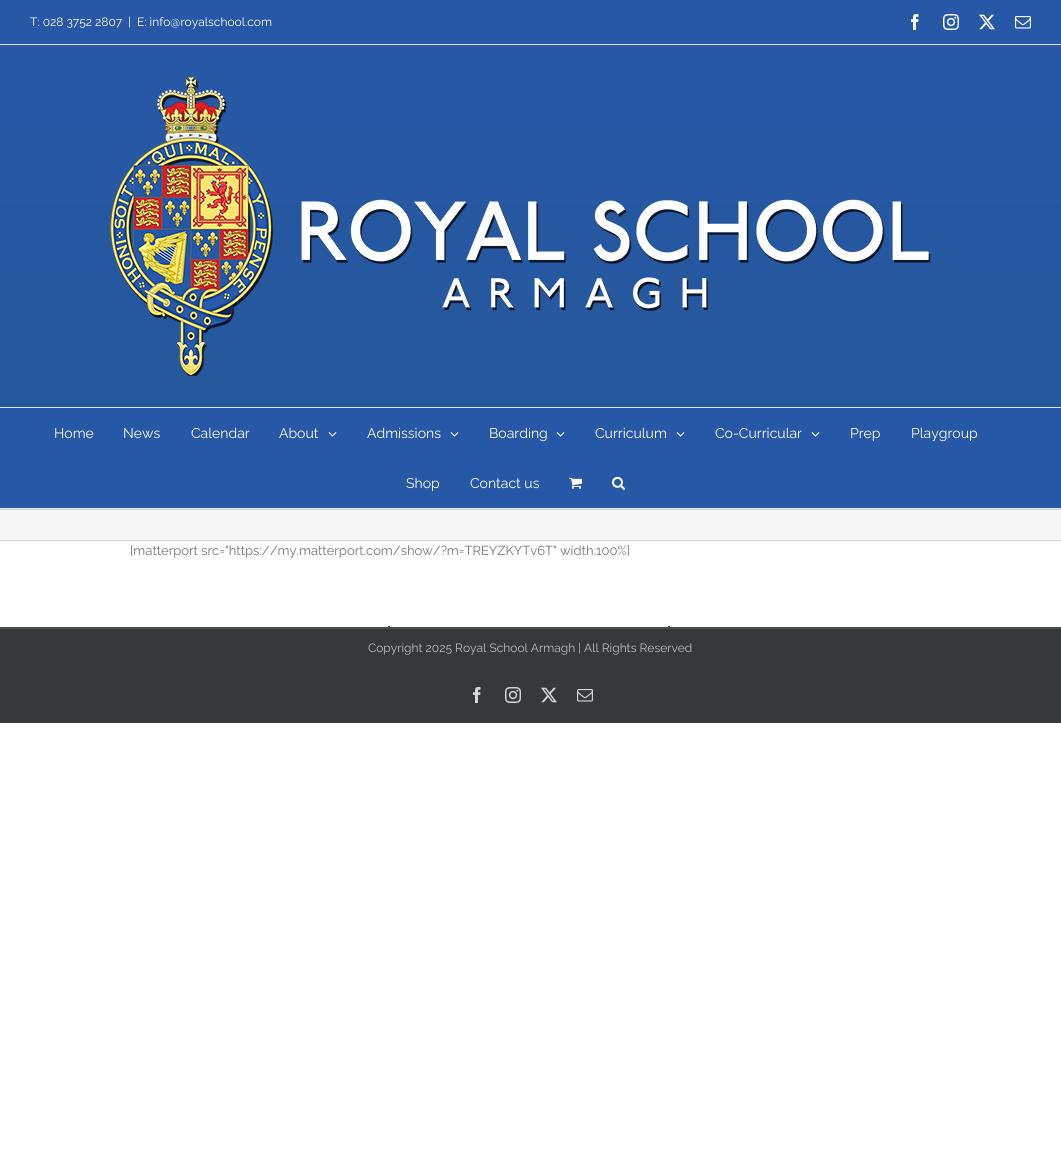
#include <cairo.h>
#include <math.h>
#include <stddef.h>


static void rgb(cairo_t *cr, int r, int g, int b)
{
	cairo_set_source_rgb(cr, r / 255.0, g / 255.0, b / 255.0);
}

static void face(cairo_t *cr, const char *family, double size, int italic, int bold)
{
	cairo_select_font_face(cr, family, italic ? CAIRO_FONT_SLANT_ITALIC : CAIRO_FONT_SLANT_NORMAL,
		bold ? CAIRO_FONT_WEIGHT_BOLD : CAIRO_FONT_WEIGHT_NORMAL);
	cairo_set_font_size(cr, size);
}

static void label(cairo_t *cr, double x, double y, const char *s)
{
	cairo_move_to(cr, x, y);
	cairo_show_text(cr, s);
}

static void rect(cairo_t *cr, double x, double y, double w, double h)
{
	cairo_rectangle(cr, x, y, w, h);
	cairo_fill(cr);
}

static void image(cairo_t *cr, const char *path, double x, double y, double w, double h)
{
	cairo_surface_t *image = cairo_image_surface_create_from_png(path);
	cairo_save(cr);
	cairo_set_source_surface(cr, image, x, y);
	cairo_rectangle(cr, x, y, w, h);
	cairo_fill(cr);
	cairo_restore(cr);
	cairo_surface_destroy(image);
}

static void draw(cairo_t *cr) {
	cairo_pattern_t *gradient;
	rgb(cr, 255, 255, 255);
	cairo_paint(cr);
	rgb(cr, 38, 88, 167);
	rect(cr, 0, 0, 1061, 44);
	rgb(cr, 229, 229, 229);
	rect(cr, 0, 44, 1061, 1);
	face(cr, "Raleway", 12, 0, 0);
	rgb(cr, 255, 255, 255);
	label(cr, 30, 26, "T: 028 3752 2807");
	label(cr, 128, 26, "|");
	label(cr, 137, 26, "E: info@royalschool.com");
	image(cr, "image0.png", 911, 14, 8, 16);
	image(cr, "image1.png", 943, 14, 16, 16);
	image(cr, "image2.png", 979, 14, 16, 16);
	image(cr, "image3.png", 1015, 16, 16, 13);
	gradient = cairo_pattern_create_linear(531, 45, 531, 1131);
	cairo_pattern_add_color_stop_rgba(gradient, 0, 0.149, 0.345, 0.655, 1);
	cairo_pattern_add_color_stop_rgba(gradient, 1, 0.149, 0.345, 0.533, 1);
	cairo_set_source(cr, gradient);
	cairo_pattern_destroy(gradient);
	rect(cr, 0, 45, 1061, 362);
	rgb(cr, 229, 229, 229);
	rect(cr, 0, 407, 1061, 1);
	image(cr, "image4.png", 110, 77, 821, 299);
	rgb(cr, 38, 88, 167);
	rect(cr, 0, 408, 1061, 100);
	rgb(cr, 229, 229, 229);
	rect(cr, 0, 508, 1061, 1);
	face(cr, "Raleway", 14, 0, 0);
	rgb(cr, 255, 255, 255);
	label(cr, 54, 438, "Home");
	label(cr, 123, 438, "News");
	label(cr, 191, 438, "Calendar");
	label(cr, 279, 438, "About");
	image(cr, "image5.png", 328, 432, 9, 5);
	label(cr, 367, 438, "Admissions");
	image(cr, "image5.png", 450, 432, 9, 5);
	label(cr, 489, 438, "Boarding");
	image(cr, "image5.png", 556, 432, 9, 5);
	label(cr, 595, 438, "Curriculum");
	image(cr, "image5.png", 676, 432, 9, 5);
	label(cr, 715, 438, "Co-Curricular");
	image(cr, "image5.png", 811, 432, 9, 5);
	label(cr, 850, 438, "Prep");
	label(cr, 911, 438, "Playgroup");
	label(cr, 406, 488, "Shop");
	label(cr, 470, 488, "Contact us");
	image(cr, "image6.png", 569, 477, 13, 12);
	image(cr, "image7.png", 612, 476, 13, 14);
	rgb(cr, 246, 246, 246);
	rect(cr, 0, 510, 1061, 30);
	rgb(cr, 210, 211, 212);
	rect(cr, 0, 509, 1061, 1);
	rect(cr, 0, 540, 1061, 1);
	face(cr, "Raleway", 13, 0, 0);
	rgb(cr, 116, 116, 116);
	label(cr, 130, 555, "[matterport src=\"https://my.matterport.com/show/?m=TREYZKYTv6T\" width:100%]");
	rgb(cr, 80, 81, 82);
	rect(cr, 388, 626, 2, 1);
	rect(cr, 668, 626, 2, 1);
	rgb(cr, 54, 56, 57);
	rect(cr, 0, 629, 1061, 94);
	rgb(cr, 75, 76, 77);
	rect(cr, 0, 627, 1061, 2);
	face(cr, "Raleway", 12, 0, 0);
	rgb(cr, 191, 191, 191);
	label(cr, 368, 652, "Copyright 2025 Royal School Armagh | All Rights Reserved");
	image(cr, "image8.png", 473, 687, 8, 16);
	image(cr, "image9.png", 505, 687, 16, 16);
	image(cr, "image10.png", 541, 687, 16, 16);
	image(cr, "image11.png", 577, 689, 16, 13);
}

int main(void) {
	cairo_surface_t *surface = cairo_image_surface_create(CAIRO_FORMAT_RGB24, 1061, 1172);
	cairo_t *cr = cairo_create(surface);
	cairo_font_options_t *options = cairo_font_options_create();
	cairo_font_options_set_hint_metrics(options, CAIRO_HINT_METRICS_OFF);
	cairo_font_options_set_hint_style(options, CAIRO_HINT_STYLE_NONE);
	cairo_set_font_options(cr, options);
	cairo_set_miter_limit(cr, 4);
	draw(cr);
	cairo_surface_write_to_png(surface, "render.png");
	cairo_font_options_destroy(options);
	cairo_destroy(cr);
	cairo_surface_destroy(surface);
	return 0;
}
